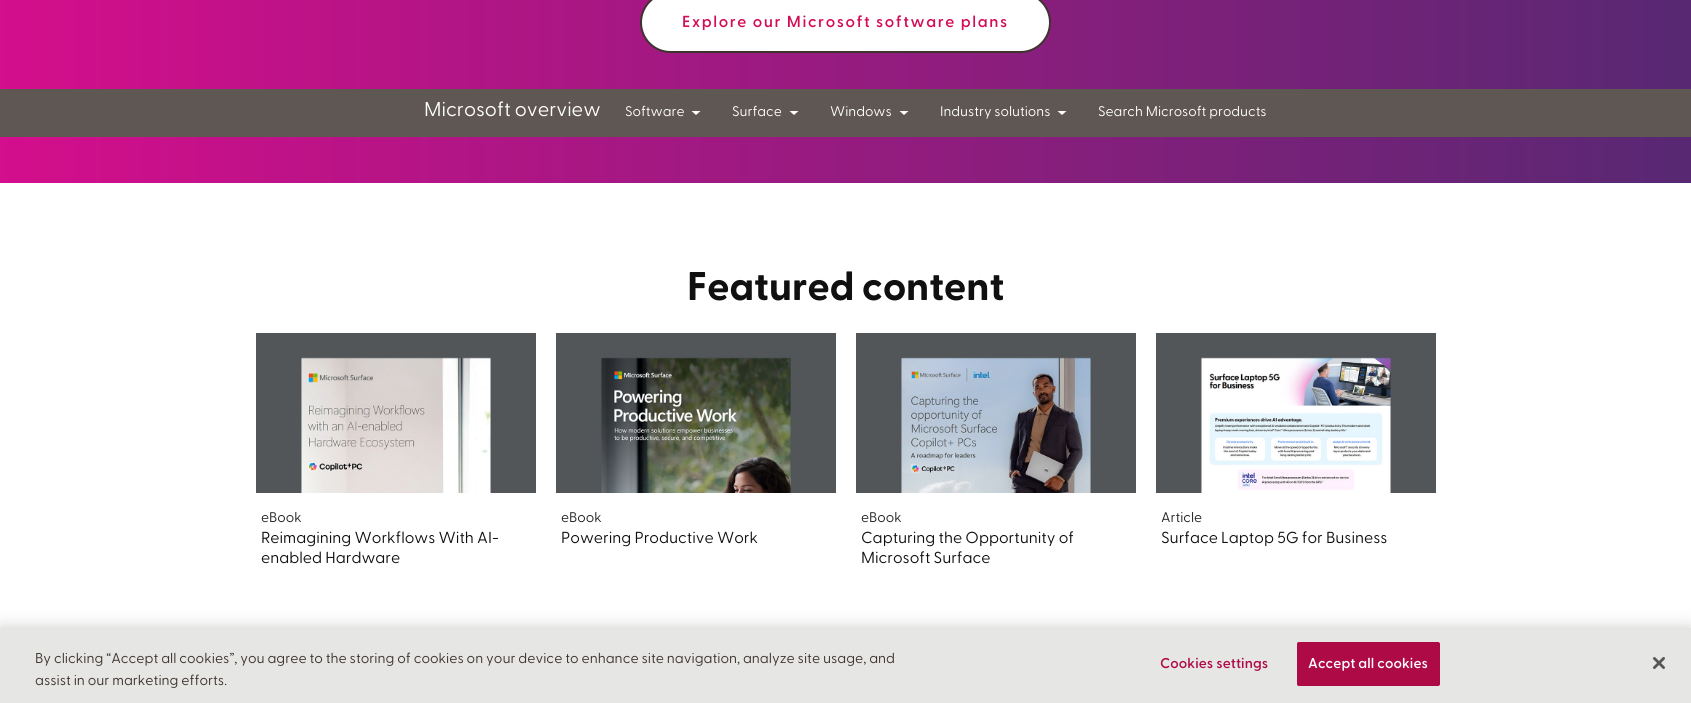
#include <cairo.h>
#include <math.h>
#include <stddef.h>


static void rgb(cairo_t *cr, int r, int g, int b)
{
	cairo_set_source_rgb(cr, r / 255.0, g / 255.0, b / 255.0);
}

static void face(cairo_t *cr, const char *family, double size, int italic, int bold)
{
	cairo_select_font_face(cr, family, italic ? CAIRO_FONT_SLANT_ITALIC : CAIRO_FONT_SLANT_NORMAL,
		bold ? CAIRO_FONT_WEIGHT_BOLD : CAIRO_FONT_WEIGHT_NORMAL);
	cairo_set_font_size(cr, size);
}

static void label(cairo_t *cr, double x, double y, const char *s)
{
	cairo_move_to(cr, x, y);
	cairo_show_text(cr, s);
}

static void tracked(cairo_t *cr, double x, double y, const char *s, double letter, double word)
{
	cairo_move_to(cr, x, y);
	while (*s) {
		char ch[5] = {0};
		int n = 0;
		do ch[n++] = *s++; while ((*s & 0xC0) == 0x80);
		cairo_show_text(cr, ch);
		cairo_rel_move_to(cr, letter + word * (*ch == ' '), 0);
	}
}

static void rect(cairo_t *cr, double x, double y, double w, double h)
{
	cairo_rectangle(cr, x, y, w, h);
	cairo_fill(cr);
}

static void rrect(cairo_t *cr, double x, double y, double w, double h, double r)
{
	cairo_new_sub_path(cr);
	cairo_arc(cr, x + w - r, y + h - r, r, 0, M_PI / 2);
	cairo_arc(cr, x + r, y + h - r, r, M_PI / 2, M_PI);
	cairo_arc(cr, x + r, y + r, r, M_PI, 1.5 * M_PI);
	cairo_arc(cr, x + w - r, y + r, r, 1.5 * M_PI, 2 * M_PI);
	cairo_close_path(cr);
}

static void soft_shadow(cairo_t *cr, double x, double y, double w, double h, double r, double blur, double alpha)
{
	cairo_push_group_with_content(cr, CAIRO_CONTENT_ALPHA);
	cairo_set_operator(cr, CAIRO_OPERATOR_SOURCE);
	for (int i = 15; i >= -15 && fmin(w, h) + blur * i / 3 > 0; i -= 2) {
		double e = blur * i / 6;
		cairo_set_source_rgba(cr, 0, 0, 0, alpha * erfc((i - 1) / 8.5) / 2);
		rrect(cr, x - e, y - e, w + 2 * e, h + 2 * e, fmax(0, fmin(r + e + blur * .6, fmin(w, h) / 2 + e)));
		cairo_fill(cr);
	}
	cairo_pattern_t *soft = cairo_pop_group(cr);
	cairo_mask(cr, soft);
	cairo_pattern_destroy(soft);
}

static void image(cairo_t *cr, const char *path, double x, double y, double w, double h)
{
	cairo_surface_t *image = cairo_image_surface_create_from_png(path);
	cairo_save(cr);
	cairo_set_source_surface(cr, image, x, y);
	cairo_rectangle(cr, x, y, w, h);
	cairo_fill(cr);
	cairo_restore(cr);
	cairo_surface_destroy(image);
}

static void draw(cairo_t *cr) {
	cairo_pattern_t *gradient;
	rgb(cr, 255, 255, 255);
	cairo_paint(cr);
	gradient = cairo_pattern_create_linear(0, -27, 1691, -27);
	cairo_pattern_add_color_stop_rgba(gradient, 0, 0.831, 0.055, 0.549, 1);
	cairo_pattern_add_color_stop_rgba(gradient, 1, 0.345, 0.157, 0.451, 1);
	cairo_set_source(cr, gradient);
	cairo_pattern_destroy(gradient);
	rect(cr, 0, 0, 1691, 183);
	rgb(cr, 255, 255, 255);
	rrect(cr, 641, -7, 409, 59, 29.5);
	cairo_fill_preserve(cr);
	rgb(cr, 62, 51, 45);
	cairo_stroke(cr);
	face(cr, "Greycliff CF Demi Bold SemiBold", 16, 0, 0);
	rgb(cr, 211, 12, 85);
	tracked(cr, 682, 27, "Explore our Microsoft software plans", 1.6, 0);
	rgb(cr, 95, 87, 83);
	rect(cr, 0, 89, 1691, 48);
	face(cr, "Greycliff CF", 20, 0, 0);
	rgb(cr, 255, 255, 255);
	label(cr, 424, 116, "Microsoft overview");
	face(cr, "Greycliff CF", 14, 0, 0);
	label(cr, 625, 116, "Software");
	cairo_new_path(cr);
	cairo_move_to(cr, 691.5, 111);
	cairo_line_to(cr, 696, 115);
	cairo_line_to(cr, 700.5, 111);
	cairo_close_path(cr);
	cairo_fill(cr);
	label(cr, 732, 116, "Surface");
	cairo_new_path(cr);
	cairo_move_to(cr, 789.5, 111);
	cairo_line_to(cr, 794, 115);
	cairo_line_to(cr, 798.5, 111);
	cairo_close_path(cr);
	cairo_fill(cr);
	label(cr, 830, 116, "Windows");
	cairo_new_path(cr);
	cairo_move_to(cr, 899.5, 111);
	cairo_line_to(cr, 904, 115);
	cairo_line_to(cr, 908.5, 111);
	cairo_close_path(cr);
	cairo_fill(cr);
	label(cr, 940, 116, "Industry solutions");
	cairo_new_path(cr);
	cairo_move_to(cr, 1057.5, 111);
	cairo_line_to(cr, 1062, 115);
	cairo_line_to(cr, 1066.5, 111);
	cairo_close_path(cr);
	cairo_fill(cr);
	label(cr, 1098, 116, "Search Microsoft products");
	face(cr, "Greycliff CF", 40, 0, 1);
	rgb(cr, 16, 16, 16);
	label(cr, 687, 300, "Featured content");
	image(cr, "image0.png", 256, 333, 280, 160);
	face(cr, "Greycliff CF", 14, 0, 0);
	rgb(cr, 34, 34, 34);
	label(cr, 261, 522, "eBook");
	face(cr, "Greycliff CF", 16, 0, 0);
	rgb(cr, 16, 16, 16);
	label(cr, 261, 543, "Reimagining Workflows With AI-");
	label(cr, 261, 563, "enabled Hardware");
	image(cr, "image1.png", 556, 333, 280, 160);
	face(cr, "Greycliff CF", 14, 0, 0);
	rgb(cr, 34, 34, 34);
	label(cr, 561, 522, "eBook");
	face(cr, "Greycliff CF", 16, 0, 0);
	rgb(cr, 16, 16, 16);
	label(cr, 561, 543, "Powering Productive Work");
	image(cr, "image2.png", 856, 333, 280, 160);
	face(cr, "Greycliff CF", 14, 0, 0);
	rgb(cr, 34, 34, 34);
	label(cr, 861, 522, "eBook");
	face(cr, "Greycliff CF", 16, 0, 0);
	rgb(cr, 16, 16, 16);
	label(cr, 861, 543, "Capturing the Opportunity of");
	label(cr, 861, 563, "Microsoft Surface");
	image(cr, "image3.png", 1156, 333, 280, 160);
	face(cr, "Greycliff CF", 14, 0, 0);
	rgb(cr, 34, 34, 34);
	label(cr, 1161, 522, "Article");
	face(cr, "Greycliff CF", 16, 0, 0);
	rgb(cr, 16, 16, 16);
	label(cr, 1161, 543, "Surface Laptop 5G for Business");
	rgb(cr, 0, 0, 0);
	soft_shadow(cr, 0, 628, 1691, 75, 0, 9, 0.2);
	rgb(cr, 230, 230, 229);
	rect(cr, 0, 628, 1691, 75);
	face(cr, "Greycliff CF", 14.23, 0, 0);
	rgb(cr, 62, 51, 45);
	label(cr, 35, 663, "By clicking “Accept all cookies”, you agree to the storing of cookies on your device to enhance site navigation, analyze site usage, and");
	label(cr, 35, 685, "assist in our marketing efforts.");
	face(cr, "Greycliff CF Demi Bold SemiBold", 14.23, 0, 0);
	rgb(cr, 174, 10, 70);
	tracked(cr, 1160, 668, "Cookies settings", 0.1, 0);
	rrect(cr, 1297.5, 642.5, 142, 43, 1.5);
	cairo_fill_preserve(cr);
	cairo_set_line_width(cr, 1);
	cairo_stroke(cr);
	rgb(cr, 255, 255, 255);
	tracked(cr, 1308, 668, "Accept all cookies", 0.1, 0);
	image(cr, "image4.png", 1653, 657, 12, 12);
}

int main(void) {
	cairo_surface_t *surface = cairo_image_surface_create(CAIRO_FORMAT_RGB24, 1691, 703);
	cairo_t *cr = cairo_create(surface);
	cairo_font_options_t *options = cairo_font_options_create();
	cairo_font_options_set_hint_metrics(options, CAIRO_HINT_METRICS_OFF);
	cairo_font_options_set_hint_style(options, CAIRO_HINT_STYLE_NONE);
	cairo_set_font_options(cr, options);
	cairo_set_miter_limit(cr, 4);
	draw(cr);
	cairo_surface_write_to_png(surface, "render.png");
	cairo_font_options_destroy(options);
	cairo_destroy(cr);
	cairo_surface_destroy(surface);
	return 0;
}
